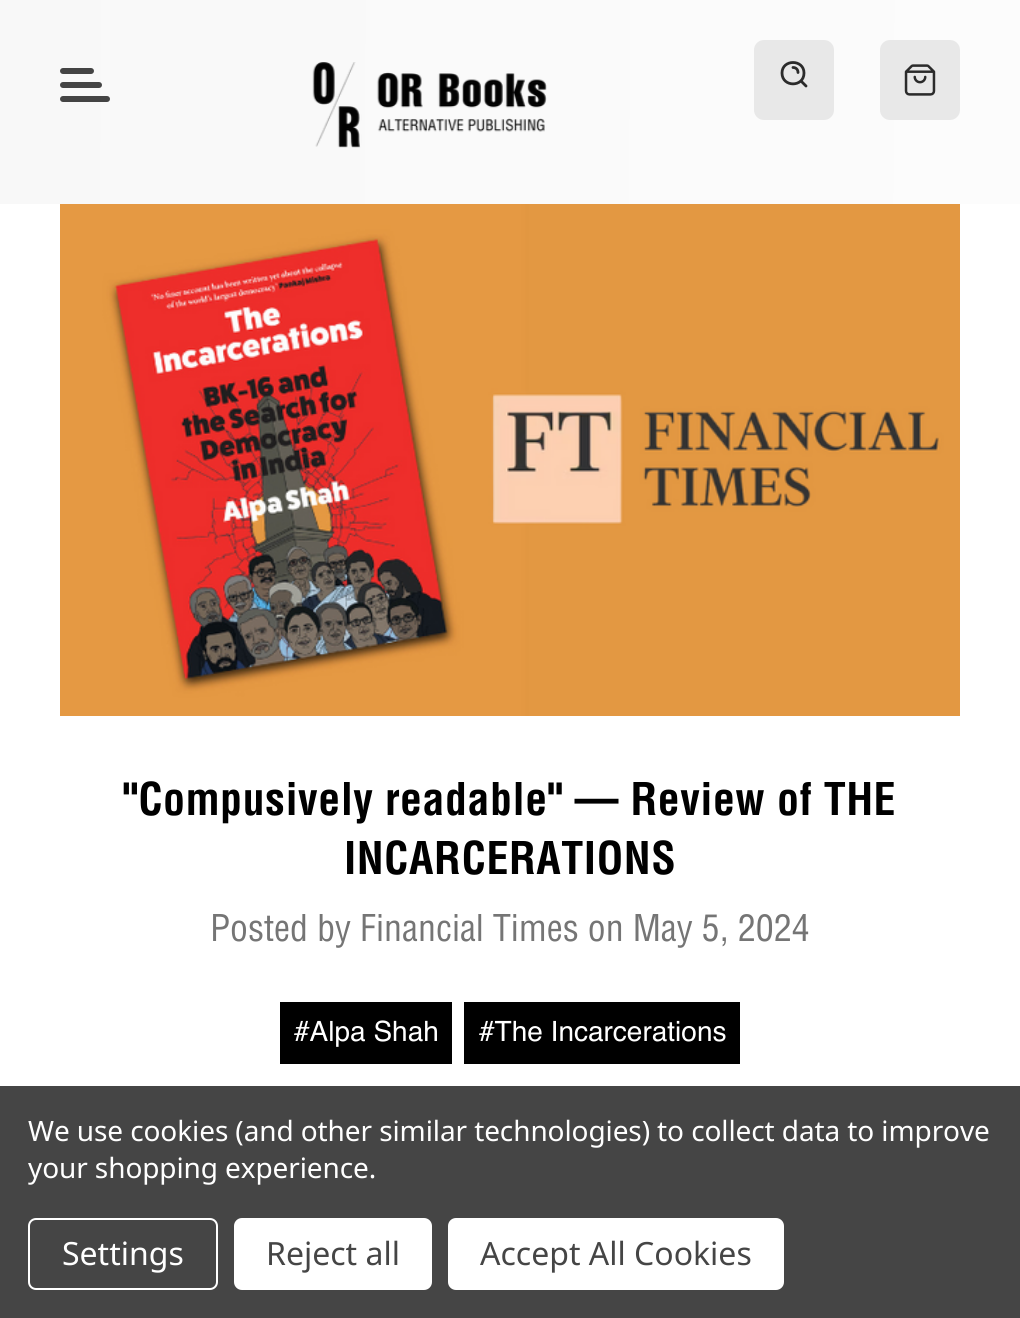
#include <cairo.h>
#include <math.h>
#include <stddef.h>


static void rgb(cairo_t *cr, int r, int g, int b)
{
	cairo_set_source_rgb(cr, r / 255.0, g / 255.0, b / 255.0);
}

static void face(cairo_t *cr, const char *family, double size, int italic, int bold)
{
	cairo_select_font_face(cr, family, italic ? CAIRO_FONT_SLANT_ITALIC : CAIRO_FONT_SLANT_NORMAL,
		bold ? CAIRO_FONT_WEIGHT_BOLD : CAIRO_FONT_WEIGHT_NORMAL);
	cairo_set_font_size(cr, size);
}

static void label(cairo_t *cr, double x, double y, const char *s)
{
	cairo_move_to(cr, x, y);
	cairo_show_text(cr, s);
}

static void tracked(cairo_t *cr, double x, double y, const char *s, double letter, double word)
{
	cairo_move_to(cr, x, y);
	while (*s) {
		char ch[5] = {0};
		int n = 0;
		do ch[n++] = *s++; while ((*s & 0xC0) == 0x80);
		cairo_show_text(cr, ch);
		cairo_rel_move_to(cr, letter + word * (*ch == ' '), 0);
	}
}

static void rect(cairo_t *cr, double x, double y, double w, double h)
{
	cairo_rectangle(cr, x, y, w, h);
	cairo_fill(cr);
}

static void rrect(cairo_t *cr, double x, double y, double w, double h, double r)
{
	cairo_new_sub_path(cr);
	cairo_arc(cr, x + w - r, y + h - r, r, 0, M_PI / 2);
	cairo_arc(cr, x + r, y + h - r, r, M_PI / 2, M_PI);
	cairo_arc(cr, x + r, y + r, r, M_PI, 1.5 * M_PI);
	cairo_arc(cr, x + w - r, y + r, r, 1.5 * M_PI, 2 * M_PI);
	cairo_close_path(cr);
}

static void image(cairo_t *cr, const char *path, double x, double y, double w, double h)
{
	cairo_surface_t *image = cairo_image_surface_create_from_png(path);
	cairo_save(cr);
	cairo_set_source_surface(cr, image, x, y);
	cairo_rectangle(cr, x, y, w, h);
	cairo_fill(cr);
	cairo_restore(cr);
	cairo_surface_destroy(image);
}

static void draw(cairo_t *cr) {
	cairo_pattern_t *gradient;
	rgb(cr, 255, 255, 255);
	cairo_paint(cr);
	gradient = cairo_pattern_create_linear(-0.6, 99, 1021, 105);
	cairo_pattern_add_color_stop_rgba(gradient, 0, 0.973, 0.973, 0.973, 1);
	cairo_pattern_add_color_stop_rgba(gradient, 0.99, 0.988, 0.988, 0.988, 1);
	cairo_set_source(cr, gradient);
	cairo_pattern_destroy(gradient);
	rect(cr, 0, 0, 1020, 204);
	rgb(cr, 68, 68, 68);
	rrect(cr, 60, 82, 42, 6, 3);
	cairo_fill(cr);
	rrect(cr, 60, 68, 34, 6, 3);
	cairo_fill(cr);
	rrect(cr, 60, 96, 50, 6, 3);
	cairo_fill(cr);
	image(cr, "image0.png", 312, 62, 235, 86);
	rgb(cr, 232, 232, 232);
	rrect(cr, 754, 40, 80, 80, 10);
	cairo_fill(cr);
	cairo_new_path(cr);
	cairo_move_to(cr, 801, 81);
	cairo_line_to(cr, 806, 86);
	cairo_move_to(cr, 793, 67.5);
	cairo_curve_to(cr, 796, 67.5, 798, 69.5, 798, 72.5);
	cairo_move_to(cr, 804, 73);
	cairo_curve_to(cr, 804, 87.5, 782, 87.5, 782, 73);
	cairo_curve_to(cr, 782, 59, 804, 59, 804, 73);
	cairo_close_path(cr);
	rgb(cr, 43, 43, 43);
	cairo_set_line_width(cr, 2.8);
	cairo_set_line_cap(cr, CAIRO_LINE_CAP_ROUND);
	cairo_stroke(cr);
	rgb(cr, 232, 232, 232);
	rrect(cr, 880, 40, 80, 80, 10);
	cairo_fill(cr);
	image(cr, "image1.png", 904, 64, 32, 32);
	image(cr, "image2.png", 60, 204, 900, 512);
	face(cr, "Helvetica", 44, 0, 1);
	rgb(cr, 0, 0, 0);
	tracked(cr, 123, 815, "\"Compusively readable\" — Review of THE", 0.5, 0);
	tracked(cr, 344, 874, "INCARCERATIONS", 0.5, 0);
	face(cr, "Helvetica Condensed", 36, 0, 0);
	rgb(cr, 117, 117, 117);
	label(cr, 210, 941, "Posted by Financial Times on May 5, 2024");
	rgb(cr, 0, 0, 0);
	rect(cr, 280, 1002, 172, 62);
	face(cr, "Helvetica", 28, 0, 0);
	rgb(cr, 255, 255, 255);
	label(cr, 294, 1041, "#Alpa Shah");
	rgb(cr, 0, 0, 0);
	rect(cr, 464, 1002, 276, 62);
	rgb(cr, 255, 255, 255);
	label(cr, 479, 1041, "#The Incarcerations");
	rgb(cr, 69, 69, 69);
	rect(cr, 0, 1086, 1020, 232);
	face(cr, "Noto Sans", 28, 0, 0);
	rgb(cr, 255, 255, 255);
	tracked(cr, 28, 1141, "We use cookies (and other similar technologies) to collect data to improve", -0.1, 0);
	tracked(cr, 28, 1178, "your shopping experience.", -0.1, 0);
	rrect(cr, 29, 1219, 188, 70, 7);
	cairo_set_line_width(cr, 2);
	cairo_set_line_cap(cr, CAIRO_LINE_CAP_BUTT);
	cairo_stroke(cr);
	face(cr, "Noto Sans", 32, 0, 0);
	label(cr, 62, 1265, "Settings");
	rrect(cr, 234, 1218, 198, 72, 8);
	cairo_fill(cr);
	rgb(cr, 69, 69, 69);
	label(cr, 266, 1265, "Reject all");
	rgb(cr, 255, 255, 255);
	rrect(cr, 448, 1218, 336, 72, 8);
	cairo_fill(cr);
	rgb(cr, 69, 69, 69);
	label(cr, 480, 1265, "Accept All Cookies");
}

int main(void) {
	cairo_surface_t *surface = cairo_image_surface_create(CAIRO_FORMAT_RGB24, 1020, 1318);
	cairo_t *cr = cairo_create(surface);
	cairo_font_options_t *options = cairo_font_options_create();
	cairo_font_options_set_hint_metrics(options, CAIRO_HINT_METRICS_OFF);
	cairo_font_options_set_hint_style(options, CAIRO_HINT_STYLE_NONE);
	cairo_set_font_options(cr, options);
	cairo_set_miter_limit(cr, 4);
	draw(cr);
	cairo_surface_write_to_png(surface, "render.png");
	cairo_font_options_destroy(options);
	cairo_destroy(cr);
	cairo_surface_destroy(surface);
	return 0;
}
